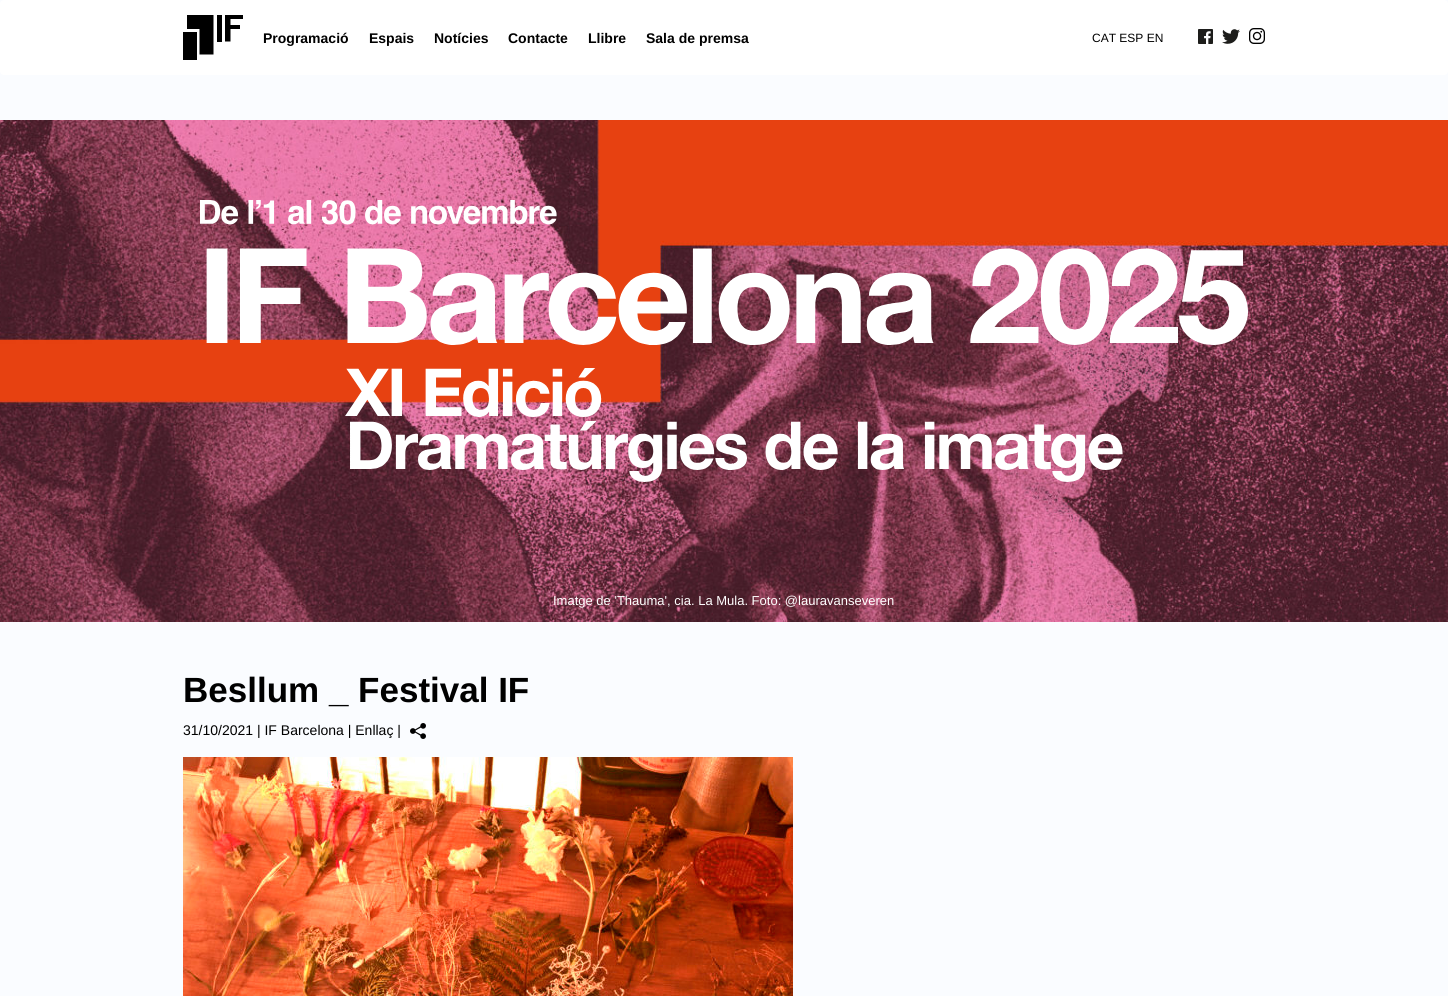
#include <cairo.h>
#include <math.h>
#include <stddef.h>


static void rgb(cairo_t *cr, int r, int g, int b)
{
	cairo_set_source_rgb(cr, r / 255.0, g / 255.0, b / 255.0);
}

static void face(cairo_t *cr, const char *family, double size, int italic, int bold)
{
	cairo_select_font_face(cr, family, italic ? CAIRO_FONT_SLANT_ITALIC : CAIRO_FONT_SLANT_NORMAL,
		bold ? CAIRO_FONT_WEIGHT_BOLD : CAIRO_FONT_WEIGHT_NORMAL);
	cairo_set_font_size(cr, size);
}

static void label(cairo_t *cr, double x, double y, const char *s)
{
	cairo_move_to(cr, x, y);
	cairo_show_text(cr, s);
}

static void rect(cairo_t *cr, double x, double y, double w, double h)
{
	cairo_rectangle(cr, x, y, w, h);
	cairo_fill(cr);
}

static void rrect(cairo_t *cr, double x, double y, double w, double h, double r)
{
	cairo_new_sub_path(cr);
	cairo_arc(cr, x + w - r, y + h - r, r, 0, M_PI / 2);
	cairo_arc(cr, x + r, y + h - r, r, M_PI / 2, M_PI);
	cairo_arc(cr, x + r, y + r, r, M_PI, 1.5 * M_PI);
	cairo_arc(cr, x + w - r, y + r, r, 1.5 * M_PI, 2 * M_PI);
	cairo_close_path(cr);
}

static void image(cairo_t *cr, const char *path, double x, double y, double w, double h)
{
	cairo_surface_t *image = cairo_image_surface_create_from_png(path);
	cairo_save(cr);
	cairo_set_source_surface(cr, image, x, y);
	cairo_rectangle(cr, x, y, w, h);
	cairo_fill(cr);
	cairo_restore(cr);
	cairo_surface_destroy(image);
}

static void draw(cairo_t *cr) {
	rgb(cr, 250, 252, 255);
	cairo_paint(cr);
	rgb(cr, 255, 255, 255);
	rrect(cr, 0, 0, 1448, 75, 4);
	cairo_fill(cr);
	rgb(cr, 0, 0, 0);
	rect(cr, 183, 32, 14, 28);
	cairo_new_path(cr);
	cairo_move_to(cr, 199.5, 54.5);
	cairo_line_to(cr, 213.5, 54.5);
	cairo_line_to(cr, 213.5, 15);
	cairo_line_to(cr, 187, 15);
	cairo_line_to(cr, 187, 29);
	cairo_line_to(cr, 199.5, 29);
	cairo_close_path(cr);
	cairo_fill(cr);
	rect(cr, 217, 15, 5, 27);
	cairo_new_path(cr);
	cairo_move_to(cr, 243, 19);
	cairo_line_to(cr, 230.5, 19);
	cairo_line_to(cr, 230.5, 25);
	cairo_line_to(cr, 240, 25);
	cairo_line_to(cr, 240, 29);
	cairo_line_to(cr, 230.5, 29);
	cairo_line_to(cr, 230.5, 41.5);
	cairo_line_to(cr, 225, 41.5);
	cairo_line_to(cr, 225, 15);
	cairo_line_to(cr, 243, 15);
	cairo_close_path(cr);
	cairo_fill(cr);
	face(cr, "Liberation Sans", 14, 0, 1);
	label(cr, 263, 43, "Programació");
	label(cr, 369, 43, "Espais");
	label(cr, 434, 43, "Notícies");
	label(cr, 508, 43, "Contacte");
	label(cr, 588, 43, "Llibre");
	label(cr, 646, 43, "Sala de premsa");
	face(cr, "Liberation Sans", 12, 0, 0);
	label(cr, 1092, 42, "CAT ESP EN");
	image(cr, "image0.png", 1198, 29, 15, 15);
	image(cr, "image1.png", 1222, 29, 18, 15);
	image(cr, "image2.png", 1249, 28, 16, 16);
	image(cr, "image3.png", 0, 120, 1448, 502);
	image(cr, "image4.png", 200, 200, 1048, 282);
	face(cr, "Liberation Sans", 13, 0, 0);
	rgb(cr, 255, 255, 255);
	label(cr, 553, 605, "Imatge de 'Thauma', cia. La Mula. Foto: @lauravanseveren");
	face(cr, "Liberation Sans", 35, 0, 1);
	rgb(cr, 0, 0, 0);
	label(cr, 183, 702, "Besllum _ Festival IF");
	face(cr, "Liberation Sans", 14, 0, 0);
	label(cr, 183, 735, "31/10/2021 | IF Barcelona | Enllaç |");
	image(cr, "image5.png", 410, 723, 16, 16);
	image(cr, "image6.png", 183, 757, 610, 239);
}

int main(void) {
	cairo_surface_t *surface = cairo_image_surface_create(CAIRO_FORMAT_RGB24, 1448, 996);
	cairo_t *cr = cairo_create(surface);
	cairo_font_options_t *options = cairo_font_options_create();
	cairo_font_options_set_hint_metrics(options, CAIRO_HINT_METRICS_OFF);
	cairo_font_options_set_hint_style(options, CAIRO_HINT_STYLE_NONE);
	cairo_set_font_options(cr, options);
	cairo_set_miter_limit(cr, 4);
	draw(cr);
	cairo_surface_write_to_png(surface, "render.png");
	cairo_font_options_destroy(options);
	cairo_destroy(cr);
	cairo_surface_destroy(surface);
	return 0;
}
